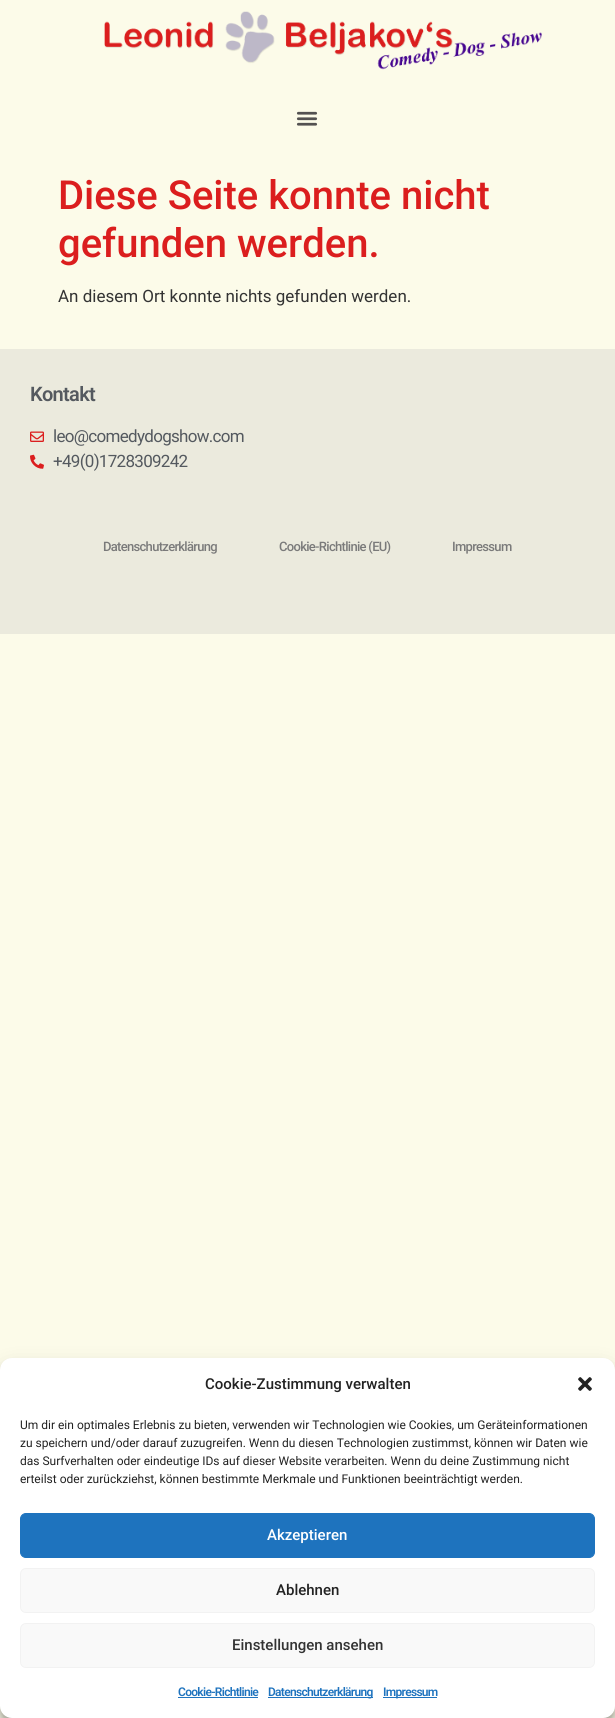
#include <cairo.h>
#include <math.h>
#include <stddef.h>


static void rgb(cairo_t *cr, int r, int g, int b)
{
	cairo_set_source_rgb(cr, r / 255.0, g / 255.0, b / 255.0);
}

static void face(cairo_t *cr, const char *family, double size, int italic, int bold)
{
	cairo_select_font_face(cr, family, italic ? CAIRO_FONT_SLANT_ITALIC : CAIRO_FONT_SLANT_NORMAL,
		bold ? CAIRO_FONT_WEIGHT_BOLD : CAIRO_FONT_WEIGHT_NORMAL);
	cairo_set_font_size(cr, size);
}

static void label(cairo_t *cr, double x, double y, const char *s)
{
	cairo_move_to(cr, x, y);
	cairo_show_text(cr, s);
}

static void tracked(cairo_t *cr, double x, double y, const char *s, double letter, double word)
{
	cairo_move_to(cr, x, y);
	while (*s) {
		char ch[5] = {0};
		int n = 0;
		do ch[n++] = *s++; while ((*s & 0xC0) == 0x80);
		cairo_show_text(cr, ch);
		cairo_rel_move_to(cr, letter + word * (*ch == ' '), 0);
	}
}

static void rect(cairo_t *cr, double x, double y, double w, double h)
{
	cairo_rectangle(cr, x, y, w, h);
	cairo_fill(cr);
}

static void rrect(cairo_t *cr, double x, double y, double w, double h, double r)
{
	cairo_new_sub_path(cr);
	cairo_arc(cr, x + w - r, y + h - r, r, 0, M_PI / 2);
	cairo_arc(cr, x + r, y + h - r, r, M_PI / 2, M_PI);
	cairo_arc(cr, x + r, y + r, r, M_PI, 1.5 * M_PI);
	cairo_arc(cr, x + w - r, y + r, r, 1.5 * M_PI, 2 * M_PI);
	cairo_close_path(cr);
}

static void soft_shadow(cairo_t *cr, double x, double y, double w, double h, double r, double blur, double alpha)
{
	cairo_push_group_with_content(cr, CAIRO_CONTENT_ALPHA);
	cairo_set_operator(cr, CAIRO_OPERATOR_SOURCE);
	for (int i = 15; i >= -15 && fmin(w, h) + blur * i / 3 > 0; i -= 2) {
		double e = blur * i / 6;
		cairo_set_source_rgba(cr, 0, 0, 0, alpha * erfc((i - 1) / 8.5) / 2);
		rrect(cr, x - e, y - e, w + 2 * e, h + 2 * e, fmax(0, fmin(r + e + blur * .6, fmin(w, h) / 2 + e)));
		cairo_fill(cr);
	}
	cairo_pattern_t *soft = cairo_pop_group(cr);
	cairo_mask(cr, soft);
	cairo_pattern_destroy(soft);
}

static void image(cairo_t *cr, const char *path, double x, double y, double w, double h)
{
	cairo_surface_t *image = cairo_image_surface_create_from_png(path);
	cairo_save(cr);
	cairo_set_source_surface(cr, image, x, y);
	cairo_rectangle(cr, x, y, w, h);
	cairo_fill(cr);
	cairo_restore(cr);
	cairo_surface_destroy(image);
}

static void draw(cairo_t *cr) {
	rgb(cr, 252, 251, 233);
	cairo_paint(cr);
	image(cr, "image0.png", 104, 11, 438, 59);
	image(cr, "image1.png", 296, 111, 22, 15);
	face(cr, "Roboto Medium", 40, 0, 0);
	rgb(cr, 219, 30, 30);
	label(cr, 58, 209, "Diese Seite konnte nicht");
	label(cr, 58, 257, "gefunden werden.");
	face(cr, "Roboto", 17, 0, 0);
	rgb(cr, 51, 51, 51);
	label(cr, 58, 302, "An diesem Ort konnte nichts gefunden werden.");
	rgb(cr, 235, 234, 221);
	rect(cr, 0, 349, 615, 285);
	face(cr, "Roboto SemiBold", 20, 0, 0);
	rgb(cr, 84, 89, 95);
	tracked(cr, 30, 401, "Kontakt", -0.7, 0);
	image(cr, "image2.png", 30, 431, 14, 11);
	face(cr, "Roboto", 17, 0, 0);
	tracked(cr, 53, 442, "leo@comedydogshow.com", -0.7, 0);
	image(cr, "image3.png", 30, 454, 14, 15);
	tracked(cr, 53, 467, "+49(0)1728309242", -0.7, 0);
	face(cr, "Roboto Medium", 13, 0, 0);
	rgb(cr, 122, 122, 122);
	tracked(cr, 103, 551, "Datenschutzerklärung", -0.7, 0);
	tracked(cr, 279, 551, "Cookie-Richtlinie (EU)", -0.7, 0);
	tracked(cr, 452, 551, "Impressum", -0.7, 0);
	rgb(cr, 0, 0, 0);
	soft_shadow(cr, 0, 1364, 615, 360, 12, 3, 0.23);
	soft_shadow(cr, 0, 1368, 615, 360, 12, 10, 0.19);
	rgb(cr, 255, 255, 255);
	rrect(cr, 0, 1358, 615, 360, 12);
	cairo_fill(cr);
	face(cr, "Roboto Medium", 15, 0, 0);
	rgb(cr, 34, 34, 34);
	label(cr, 205, 1389, "Cookie-Zustimmung verwalten");
	image(cr, "image4.png", 578, 1377, 14, 14);
	face(cr, "Roboto", 12, 0, 0);
	label(cr, 20, 1429, "Um dir ein optimales Erlebnis zu bieten, verwenden wir Technologien wie Cookies, um Geräteinformationen");
	label(cr, 20, 1447, "zu speichern und/oder darauf zuzugreifen. Wenn du diesen Technologien zustimmst, können wir Daten wie");
	label(cr, 20, 1465, "das Surfverhalten oder eindeutige IDs auf dieser Website verarbeiten. Wenn du deine Zustimmung nicht");
	label(cr, 20, 1483, "erteilst oder zurückziehst, können bestimmte Merkmale und Funktionen beeinträchtigt werden.");
	rgb(cr, 30, 115, 190);
	rrect(cr, 20.5, 1513.5, 574, 44, 5.5);
	cairo_fill_preserve(cr);
	cairo_set_line_width(cr, 1);
	cairo_stroke(cr);
	face(cr, "Roboto Medium", 15, 0, 0);
	rgb(cr, 255, 255, 255);
	label(cr, 267, 1540, "Akzeptieren");
	rgb(cr, 249, 249, 249);
	rrect(cr, 20.5, 1568.5, 574, 44, 5.5);
	cairo_fill_preserve(cr);
	rgb(cr, 242, 242, 242);
	cairo_stroke(cr);
	rgb(cr, 34, 34, 34);
	label(cr, 276, 1595, "Ablehnen");
	rgb(cr, 249, 249, 249);
	rrect(cr, 20.5, 1623.5, 574, 44, 5.5);
	cairo_fill_preserve(cr);
	rgb(cr, 242, 242, 242);
	cairo_stroke(cr);
	rgb(cr, 51, 51, 51);
	label(cr, 232, 1650, "Einstellungen ansehen");
	face(cr, "Roboto SemiBold", 12, 0, 0);
	rgb(cr, 30, 115, 190);
	tracked(cr, 178, 1696, "Cookie-Richtlinie", -0.7, 0);
	rect(cr, 178, 1697, 80, 1);
	rect(cr, 268, 1697, 105, 1);
	tracked(cr, 268, 1696, "Datenschutzerklärung", -0.7, 0);
	rect(cr, 383, 1697, 54, 1);
	tracked(cr, 383, 1696, "Impressum", -0.7, 0);
}

int main(void) {
	cairo_surface_t *surface = cairo_image_surface_create(CAIRO_FORMAT_RGB24, 615, 1718);
	cairo_t *cr = cairo_create(surface);
	cairo_font_options_t *options = cairo_font_options_create();
	cairo_font_options_set_hint_metrics(options, CAIRO_HINT_METRICS_OFF);
	cairo_font_options_set_hint_style(options, CAIRO_HINT_STYLE_NONE);
	cairo_set_font_options(cr, options);
	cairo_set_miter_limit(cr, 4);
	draw(cr);
	cairo_surface_write_to_png(surface, "render.png");
	cairo_font_options_destroy(options);
	cairo_destroy(cr);
	cairo_surface_destroy(surface);
	return 0;
}
